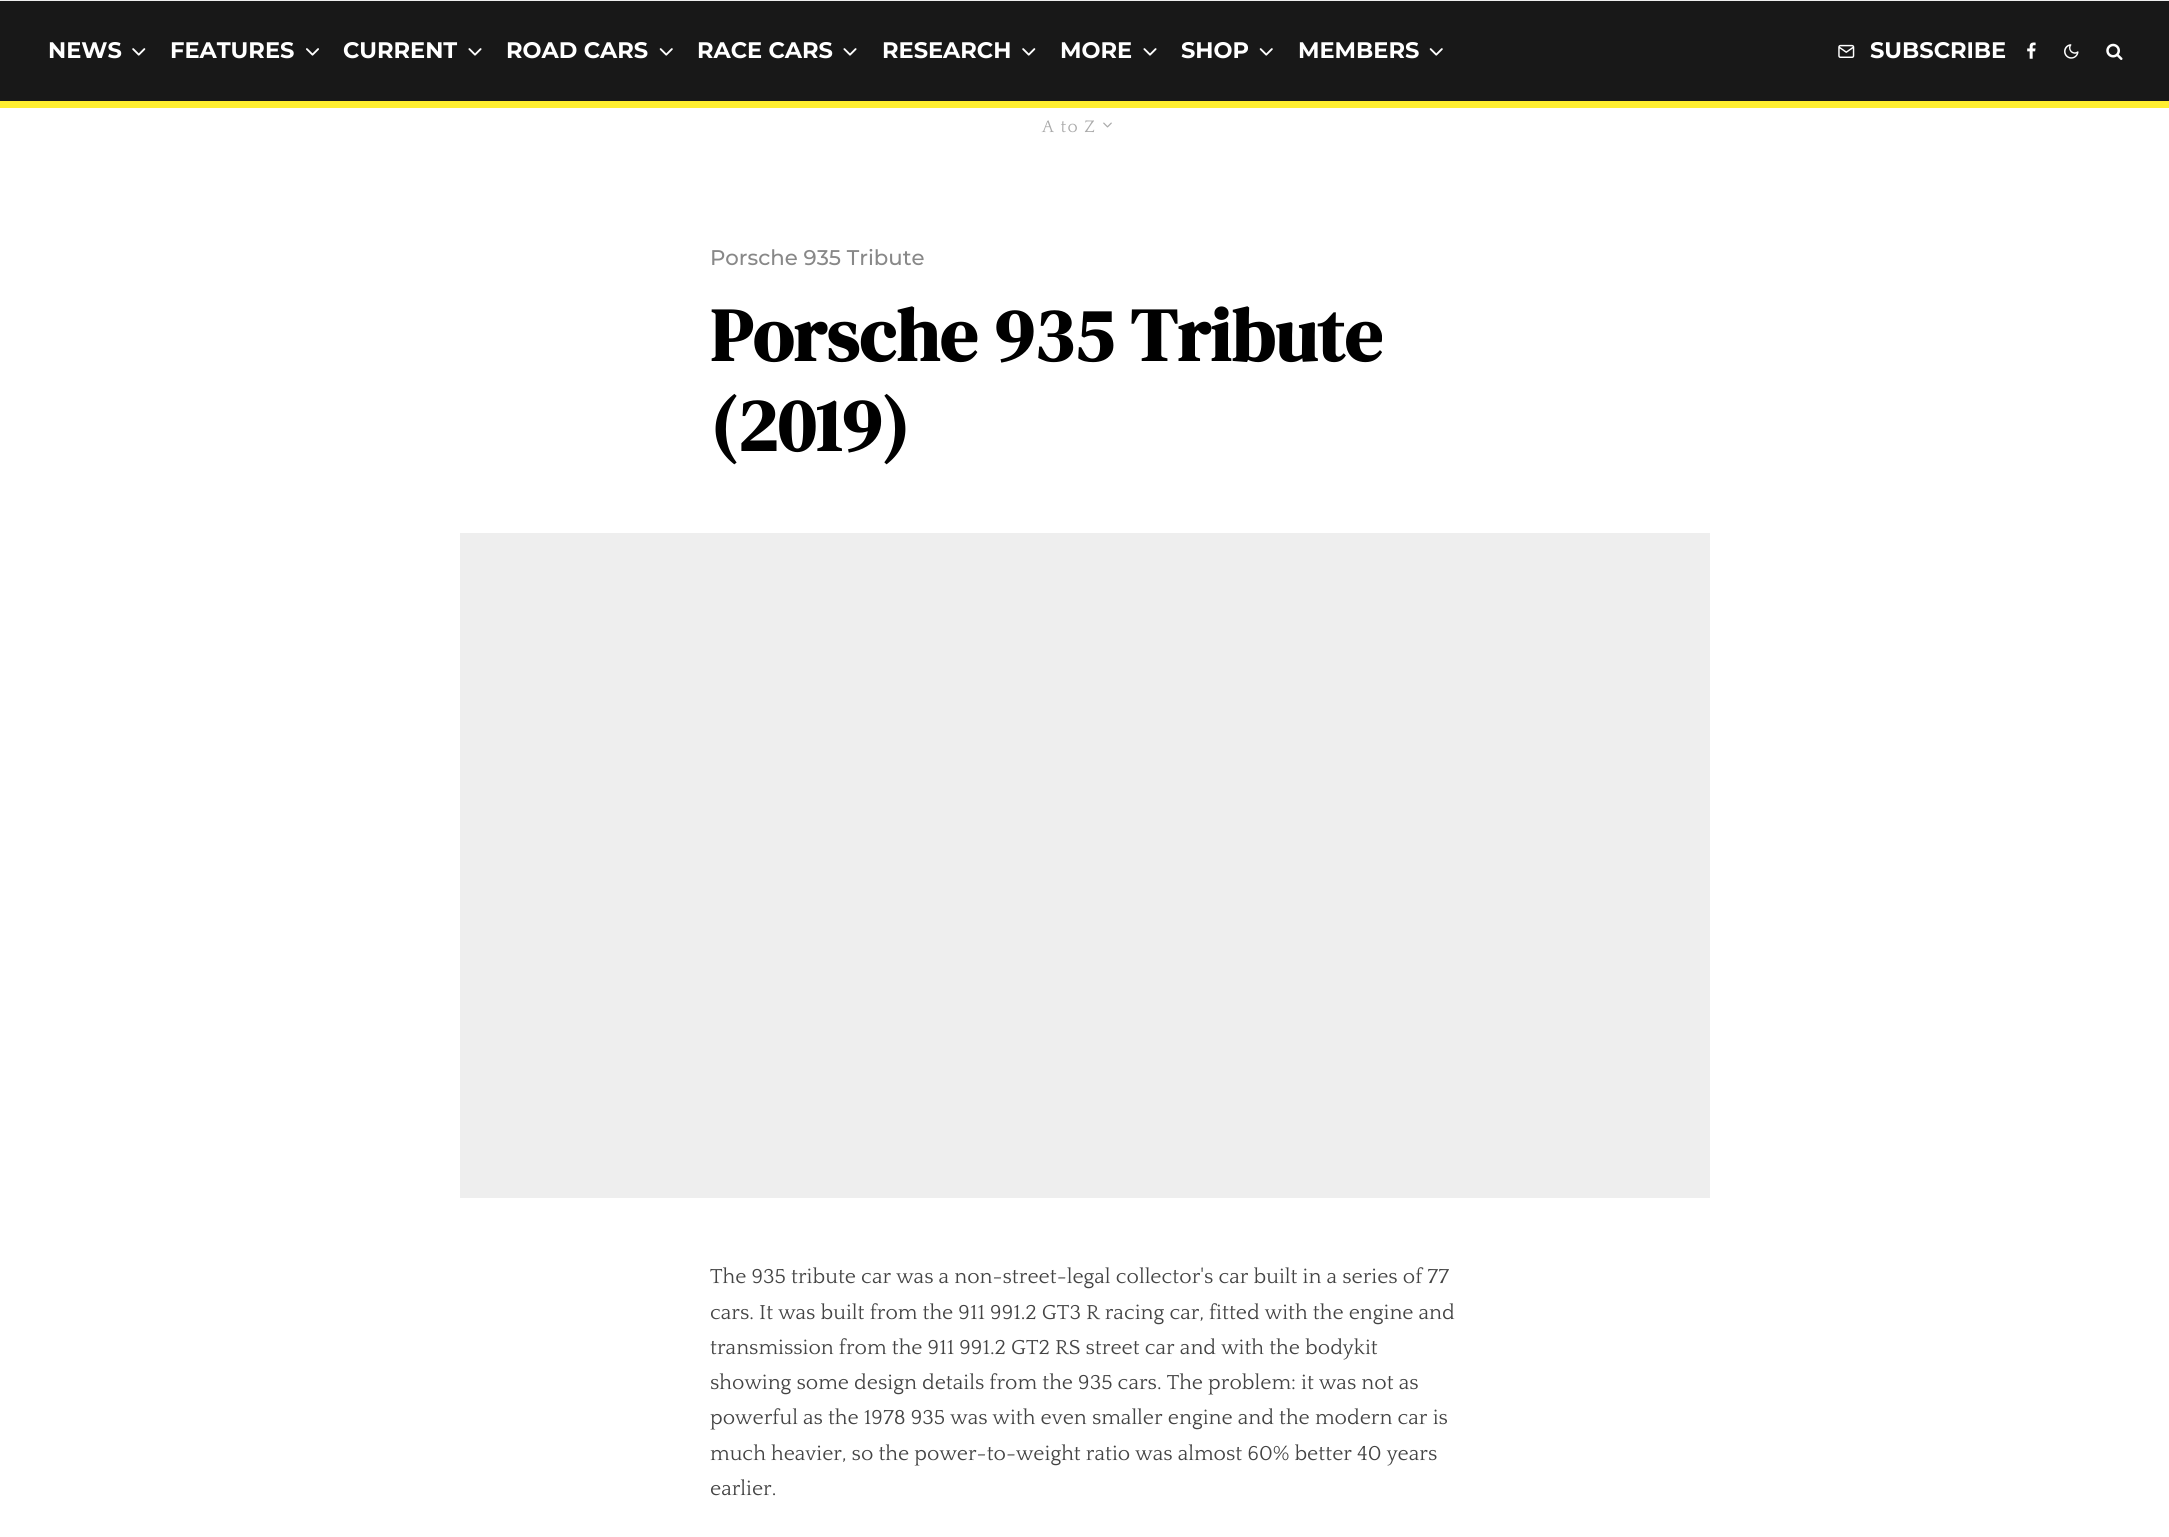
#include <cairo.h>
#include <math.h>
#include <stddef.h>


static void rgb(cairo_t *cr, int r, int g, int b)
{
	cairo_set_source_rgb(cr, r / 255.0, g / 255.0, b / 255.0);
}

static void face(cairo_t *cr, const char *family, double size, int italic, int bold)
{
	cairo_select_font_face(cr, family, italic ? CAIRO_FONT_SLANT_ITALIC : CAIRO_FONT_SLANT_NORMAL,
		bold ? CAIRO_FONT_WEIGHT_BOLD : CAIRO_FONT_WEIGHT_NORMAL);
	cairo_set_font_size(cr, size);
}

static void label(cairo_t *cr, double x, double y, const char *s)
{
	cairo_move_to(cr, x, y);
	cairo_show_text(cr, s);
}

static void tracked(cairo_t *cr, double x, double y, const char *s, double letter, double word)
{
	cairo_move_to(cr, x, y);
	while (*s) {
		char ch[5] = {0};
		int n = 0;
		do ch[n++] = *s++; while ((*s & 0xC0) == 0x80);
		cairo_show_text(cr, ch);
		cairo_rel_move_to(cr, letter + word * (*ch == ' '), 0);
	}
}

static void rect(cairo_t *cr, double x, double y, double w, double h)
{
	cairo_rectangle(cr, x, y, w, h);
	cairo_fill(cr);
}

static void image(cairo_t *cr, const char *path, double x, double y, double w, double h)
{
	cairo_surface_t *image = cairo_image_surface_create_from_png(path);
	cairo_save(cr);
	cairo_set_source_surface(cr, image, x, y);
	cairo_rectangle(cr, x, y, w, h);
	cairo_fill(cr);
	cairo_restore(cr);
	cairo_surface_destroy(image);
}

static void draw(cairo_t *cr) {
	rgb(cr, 255, 255, 255);
	cairo_paint(cr);
	rgb(cr, 24, 24, 24);
	rect(cr, 0, 1, 2169, 100);
	rgb(cr, 238, 238, 238);
	rect(cr, 0, 0, 2169, 1);
	rgb(cr, 255, 238, 48);
	rect(cr, 0, 101, 2169, 7);
	face(cr, "Montserrat", 22.5, 0, 1);
	rgb(cr, 255, 255, 255);
	label(cr, 48, 58, "NEWS");
	image(cr, "image0.png", 132, 48, 14, 8);
	label(cr, 170, 58, "FEATURES");
	image(cr, "image1.png", 306, 48, 13, 8);
	label(cr, 343, 58, "CURRENT");
	image(cr, "image2.png", 468, 48, 14, 8);
	label(cr, 506, 58, "ROAD CARS");
	image(cr, "image3.png", 659, 48, 14, 8);
	label(cr, 697, 58, "RACE CARS");
	image(cr, "image2.png", 843, 48, 14, 8);
	label(cr, 882, 58, "RESEARCH");
	image(cr, "image0.png", 1022, 48, 14, 8);
	label(cr, 1060, 58, "MORE");
	image(cr, "image2.png", 1143, 48, 14, 8);
	label(cr, 1181, 58, "SHOP");
	image(cr, "image3.png", 1259, 48, 14, 8);
	label(cr, 1298, 58, "MEMBERS");
	image(cr, "image3.png", 1429, 48, 14, 8);
	image(cr, "image4.png", 1838, 44, 17, 14);
	label(cr, 1870, 58, "SUBSCRIBE");
	image(cr, "image5.png", 2027, 42, 9, 17);
	image(cr, "image6.png", 2064, 44, 15, 15);
	image(cr, "image7.png", 2106, 43, 17, 17);
	face(cr, "Quattrocento", 17.5, 0, 0);
	rgb(cr, 170, 170, 170);
	tracked(cr, 1042, 132, "A to Z", 1.25, 0);
	image(cr, "image8.png", 1103, 122, 9, 6);
	face(cr, "Montserrat Medium", 21.25, 0, 0);
	rgb(cr, 136, 136, 136);
	label(cr, 710, 265, "Porsche 935 Tribute");
	face(cr, "DM Serif Display", 75, 0, 1);
	rgb(cr, 0, 0, 0);
	label(cr, 710, 361, "Porsche 935 Tribute");
	label(cr, 710, 451, "(2019)");
	rgb(cr, 238, 238, 238);
	rect(cr, 460, 533, 1250, 665);
	face(cr, "Quattrocento", 21.25, 0, 0);
	rgb(cr, 68, 68, 68);
	label(cr, 710, 1283, "The 935 tribute car was a non-street-legal collector's car built in a series of 77");
	label(cr, 710, 1319, "cars. It was built from the 911 991.2 GT3 R racing car, fitted with the engine and");
	label(cr, 710, 1354, "transmission from the 911 991.2 GT2 RS street car and with the bodykit");
	label(cr, 710, 1389, "showing some design details from the 935 cars. The problem: it was not as");
	label(cr, 710, 1424, "powerful as the 1978 935 was with even smaller engine and the modern car is");
	label(cr, 710, 1460, "much heavier, so the power-to-weight ratio was almost 60% better 40 years");
	label(cr, 710, 1495, "earlier.");
}

int main(void) {
	cairo_surface_t *surface = cairo_image_surface_create(CAIRO_FORMAT_RGB24, 2169, 1537);
	cairo_t *cr = cairo_create(surface);
	cairo_font_options_t *options = cairo_font_options_create();
	cairo_font_options_set_hint_metrics(options, CAIRO_HINT_METRICS_OFF);
	cairo_font_options_set_hint_style(options, CAIRO_HINT_STYLE_NONE);
	cairo_set_font_options(cr, options);
	cairo_set_miter_limit(cr, 4);
	draw(cr);
	cairo_surface_write_to_png(surface, "render.png");
	cairo_font_options_destroy(options);
	cairo_destroy(cr);
	cairo_surface_destroy(surface);
	return 0;
}
